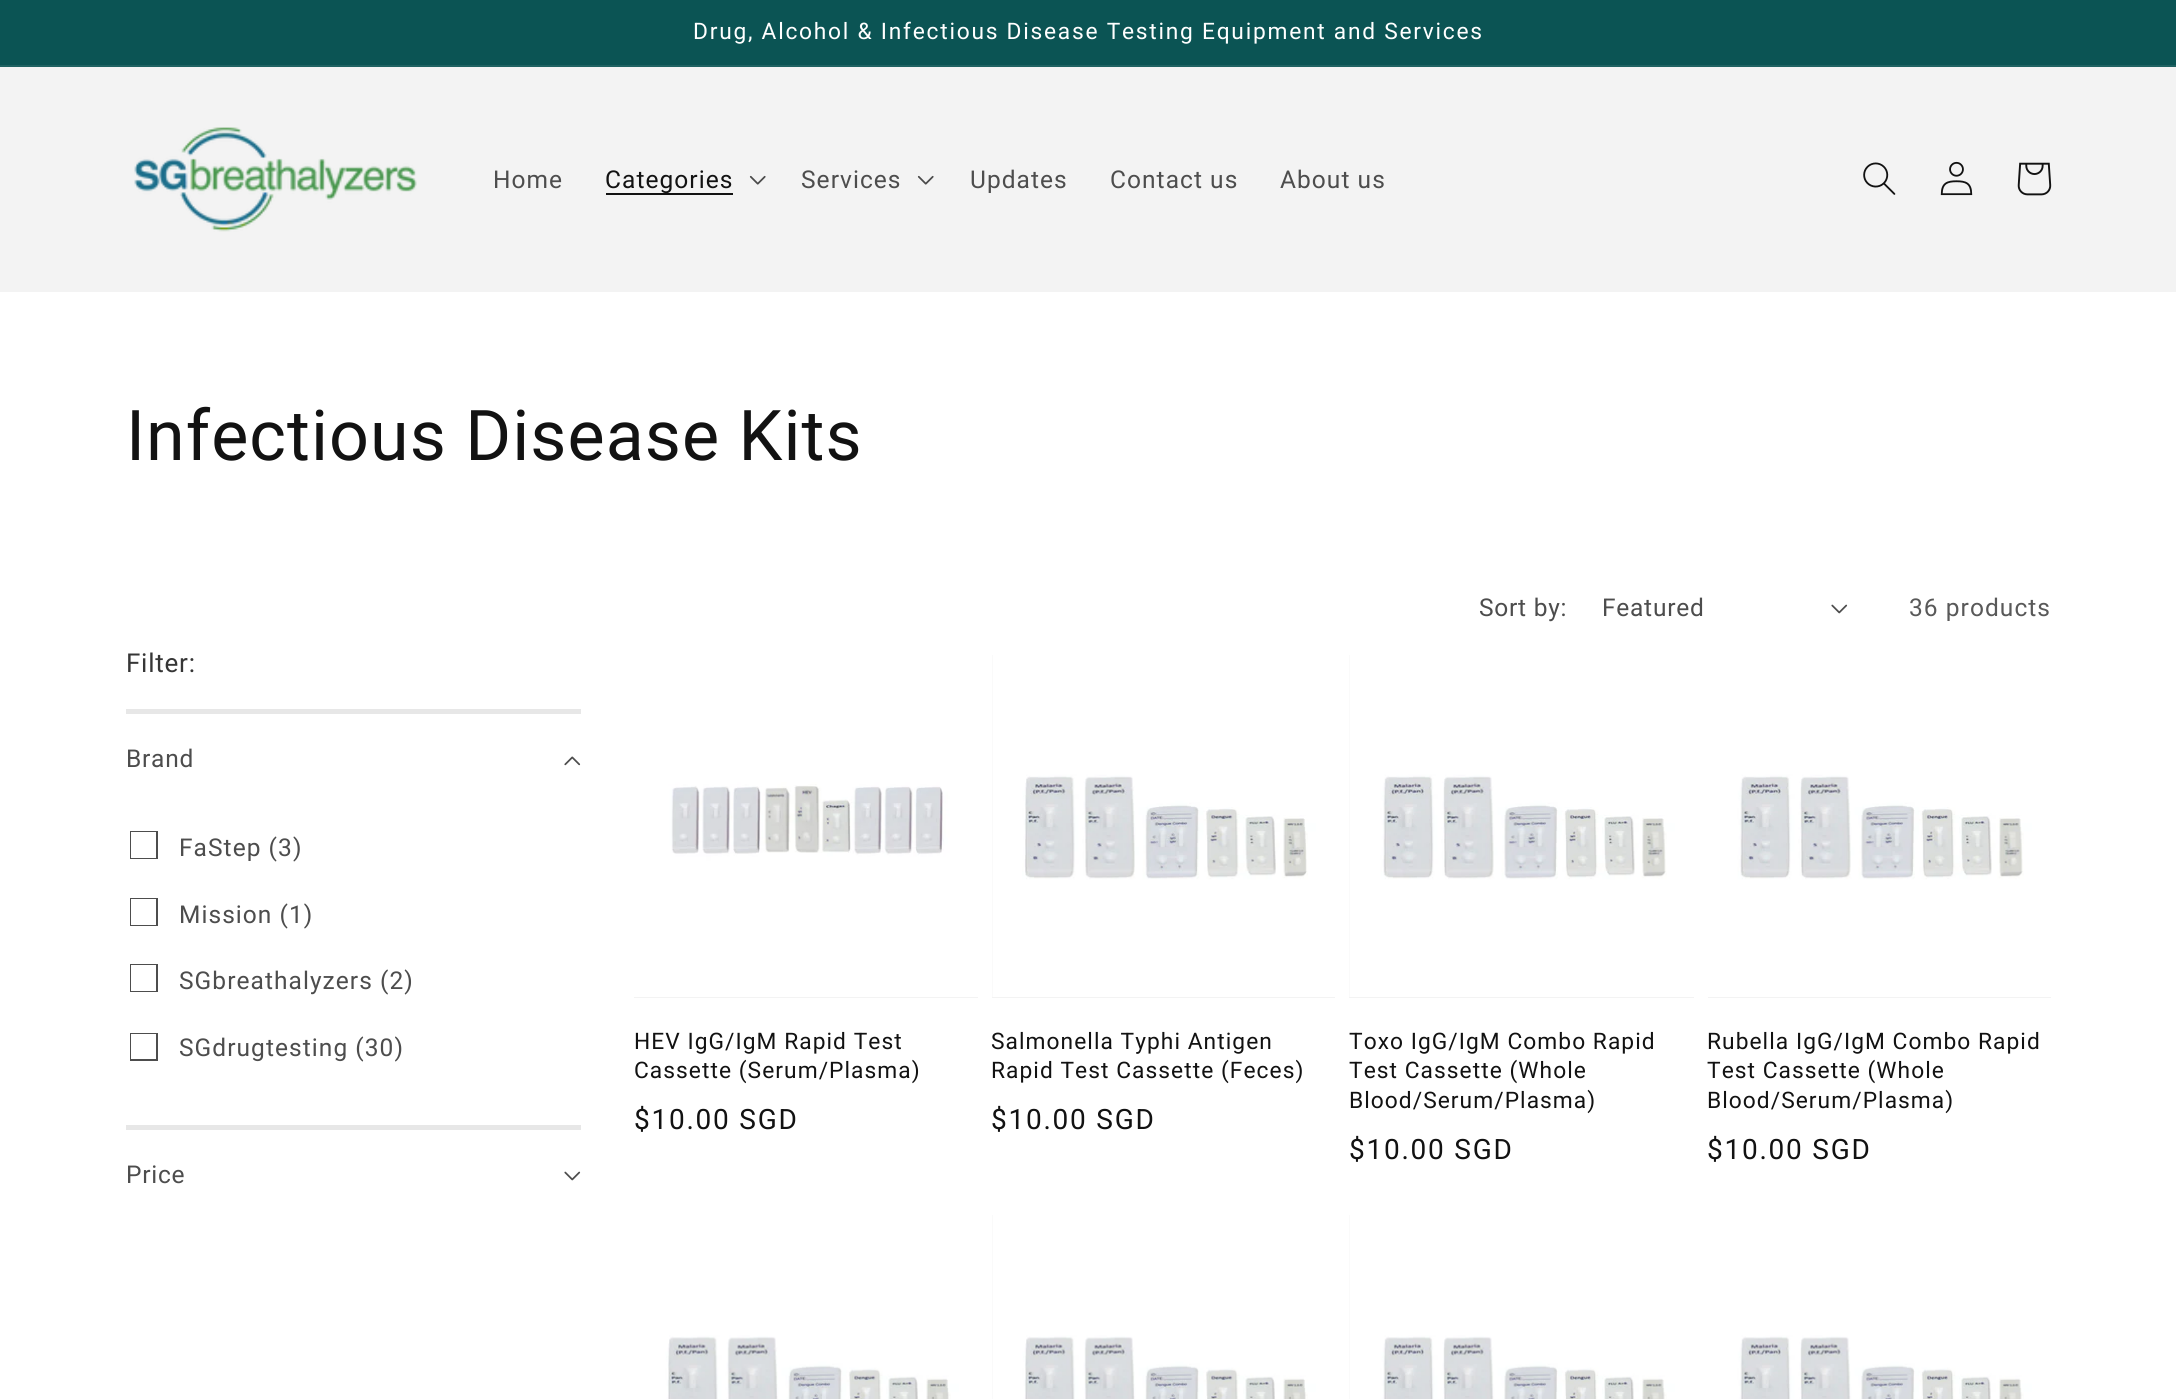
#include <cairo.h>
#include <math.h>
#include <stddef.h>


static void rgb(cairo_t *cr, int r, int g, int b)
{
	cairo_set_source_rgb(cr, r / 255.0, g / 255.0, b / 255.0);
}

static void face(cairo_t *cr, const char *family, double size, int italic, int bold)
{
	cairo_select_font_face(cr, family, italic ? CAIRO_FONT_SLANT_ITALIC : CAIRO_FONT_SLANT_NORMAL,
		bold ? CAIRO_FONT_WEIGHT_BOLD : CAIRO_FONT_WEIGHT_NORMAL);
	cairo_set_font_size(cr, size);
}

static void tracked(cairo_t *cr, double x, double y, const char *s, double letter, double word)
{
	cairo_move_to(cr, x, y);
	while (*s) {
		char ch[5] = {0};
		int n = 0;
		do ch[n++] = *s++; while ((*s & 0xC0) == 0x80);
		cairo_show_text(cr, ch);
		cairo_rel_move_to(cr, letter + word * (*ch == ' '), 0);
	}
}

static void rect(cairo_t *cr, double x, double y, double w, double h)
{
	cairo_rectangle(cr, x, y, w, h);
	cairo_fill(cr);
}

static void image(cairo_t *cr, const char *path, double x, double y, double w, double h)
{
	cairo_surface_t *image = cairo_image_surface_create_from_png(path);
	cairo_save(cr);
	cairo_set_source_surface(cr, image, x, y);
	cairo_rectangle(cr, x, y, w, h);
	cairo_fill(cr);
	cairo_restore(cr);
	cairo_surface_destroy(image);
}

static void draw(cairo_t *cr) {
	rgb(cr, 255, 255, 255);
	cairo_paint(cr);
	rgb(cr, 11, 84, 84);
	rect(cr, 0, 0, 2176, 65);
	rgb(cr, 31, 98, 98);
	rect(cr, 0, 65, 2176, 2);
	face(cr, "Roboto", 22.75, 0, 0);
	rgb(cr, 255, 255, 255);
	tracked(cr, 693, 39, "Drug, Alcohol & Infectious Disease Testing Equipment and Services", 1.75, 0);
	rgb(cr, 243, 243, 243);
	rect(cr, 0, 67, 2176, 225);
	image(cr, "image0.png", 134, 127, 283, 105);
	face(cr, "Roboto", 24.5, 0, 0);
	rgb(cr, 77, 77, 77);
	tracked(cr, 493, 188, "Home", 1.05, 0);
	rgb(cr, 18, 18, 18);
	rect(cr, 606, 193, 127, 2);
	tracked(cr, 605, 188, "Categories", 1.05, 0);
	image(cr, "image1.png", 749, 175, 17, 10);
	rgb(cr, 77, 77, 77);
	tracked(cr, 801, 188, "Services", 1.05, 0);
	image(cr, "image1.png", 917, 175, 17, 10);
	tracked(cr, 970, 188, "Updates", 1.05, 0);
	tracked(cr, 1110, 188, "Contact us", 1.05, 0);
	tracked(cr, 1280, 188, "About us", 1.05, 0);
	image(cr, "image2.png", 1863, 162, 33, 33);
	image(cr, "image3.png", 1940, 161, 33, 35);
	image(cr, "image4.png", 2017, 162, 35, 34);
	face(cr, "Roboto", 70, 0, 0);
	rgb(cr, 18, 18, 18);
	tracked(cr, 126, 460, "Infectious Disease Kits", 1.05, 0);
	face(cr, "Roboto", 24.5, 0, 0);
	rgb(cr, 77, 77, 77);
	tracked(cr, 1479, 616, "Sort by:", 0.75, 0);
	tracked(cr, 1602, 616, "Featured", 0.75, 0);
	image(cr, "image5.png", 1831, 604, 17, 10);
	rgb(cr, 89, 89, 89);
	tracked(cr, 1909, 616, "36 products", 1.05, 0);
	face(cr, "Roboto", 26, 0, 0);
	rgb(cr, 54, 54, 54);
	tracked(cr, 126, 672, "Filter:", 0.75, 0);
	rgb(cr, 231, 231, 231);
	rect(cr, 126, 709, 455, 5);
	face(cr, "Roboto", 24.5, 0, 0);
	rgb(cr, 77, 77, 77);
	tracked(cr, 126, 767, "Brand", 0.75, 0);
	image(cr, "image6.png", 564, 756, 17, 10);
	cairo_save(cr);
	cairo_rectangle(cr, 130, 831, 28, 28);
	cairo_clip(cr);
	cairo_rectangle(cr, 130, 831, 27, 28);
	cairo_stroke(cr);
	cairo_restore(cr);
	tracked(cr, 179, 856, "FaStep (3)", 1.05, 0);
	cairo_save(cr);
	cairo_rectangle(cr, 130, 898, 28, 28);
	cairo_clip(cr);
	cairo_rectangle(cr, 130, 898, 27, 28);
	cairo_stroke(cr);
	cairo_restore(cr);
	tracked(cr, 179, 923, "Mission (1)", 1.05, 0);
	cairo_save(cr);
	cairo_rectangle(cr, 130, 964, 28, 28);
	cairo_clip(cr);
	cairo_rectangle(cr, 130, 964, 27, 28);
	cairo_stroke(cr);
	cairo_restore(cr);
	tracked(cr, 179, 989, "SGbreathalyzers (2)", 1.05, 0);
	cairo_save(cr);
	cairo_rectangle(cr, 130, 1033, 28, 28);
	cairo_clip(cr);
	cairo_rectangle(cr, 130, 1033, 27, 27);
	cairo_stroke(cr);
	cairo_restore(cr);
	tracked(cr, 179, 1056, "SGdrugtesting (30)", 1.05, 0);
	rgb(cr, 231, 231, 231);
	rect(cr, 126, 1125, 455, 5);
	rgb(cr, 77, 77, 77);
	tracked(cr, 126, 1183, "Price", 0.75, 0);
	image(cr, "image5.png", 564, 1171, 17, 10);
	rgb(cr, 243, 243, 243);
	rect(cr, 634, 997, 344, 1);
	image(cr, "image7.png", 634, 655, 344, 342);
	face(cr, "Roboto", 22.75, 0, 0);
	rgb(cr, 18, 18, 18);
	tracked(cr, 634, 1049, "HEV IgG/IgM Rapid Test", 1.05, 0);
	tracked(cr, 634, 1078, "Cassette (Serum/Plasma)", 1.05, 0);
	face(cr, "Roboto", 28, 0, 0);
	tracked(cr, 634, 1129, "$10.00 SGD", 1.75, 0);
	rgb(cr, 243, 243, 243);
	rect(cr, 992, 655, 343, 343);
	image(cr, "image8.png", 992, 655, 343, 342);
	face(cr, "Roboto", 22.75, 0, 0);
	rgb(cr, 18, 18, 18);
	tracked(cr, 991, 1049, "Salmonella Typhi Antigen", 1.05, 0);
	tracked(cr, 991, 1078, "Rapid Test Cassette (Feces)", 1.05, 0);
	face(cr, "Roboto", 28, 0, 0);
	tracked(cr, 991, 1129, "$10.00 SGD", 1.75, 0);
	rgb(cr, 243, 243, 243);
	rect(cr, 1349, 655, 345, 343);
	image(cr, "image9.png", 1349, 655, 345, 342);
	face(cr, "Roboto", 22.75, 0, 0);
	rgb(cr, 18, 18, 18);
	tracked(cr, 1349, 1049, "Toxo IgG/IgM Combo Rapid", 1.05, 0);
	tracked(cr, 1349, 1078, "Test Cassette (Whole", 1.05, 0);
	tracked(cr, 1349, 1108, "Blood/Serum/Plasma)", 1.05, 0);
	face(cr, "Roboto", 28, 0, 0);
	tracked(cr, 1349, 1159, "$10.00 SGD", 1.75, 0);
	rgb(cr, 243, 243, 243);
	rect(cr, 1708, 997, 343, 1);
	image(cr, "image10.png", 1708, 655, 343, 342);
	face(cr, "Roboto", 22.75, 0, 0);
	rgb(cr, 18, 18, 18);
	tracked(cr, 1707, 1049, "Rubella IgG/IgM Combo Rapid", 1.05, 0);
	tracked(cr, 1707, 1078, "Test Cassette (Whole", 1.05, 0);
	tracked(cr, 1707, 1108, "Blood/Serum/Plasma)", 1.05, 0);
	face(cr, "Roboto", 28, 0, 0);
	tracked(cr, 1707, 1159, "$10.00 SGD", 1.75, 0);
	image(cr, "image11.png", 634, 1215, 344, 184);
	rgb(cr, 243, 243, 243);
	rect(cr, 992, 1215, 1, 184);
	image(cr, "image12.png", 992, 1215, 343, 184);
	rect(cr, 1349, 1215, 1, 184);
	image(cr, "image13.png", 1349, 1215, 345, 184);
	image(cr, "image14.png", 1708, 1215, 343, 184);
}

int main(void) {
	cairo_surface_t *surface = cairo_image_surface_create(CAIRO_FORMAT_RGB24, 2176, 1399);
	cairo_t *cr = cairo_create(surface);
	cairo_font_options_t *options = cairo_font_options_create();
	cairo_font_options_set_hint_metrics(options, CAIRO_HINT_METRICS_OFF);
	cairo_font_options_set_hint_style(options, CAIRO_HINT_STYLE_NONE);
	cairo_set_font_options(cr, options);
	cairo_set_miter_limit(cr, 4);
	draw(cr);
	cairo_surface_write_to_png(surface, "render.png");
	cairo_font_options_destroy(options);
	cairo_destroy(cr);
	cairo_surface_destroy(surface);
	return 0;
}
